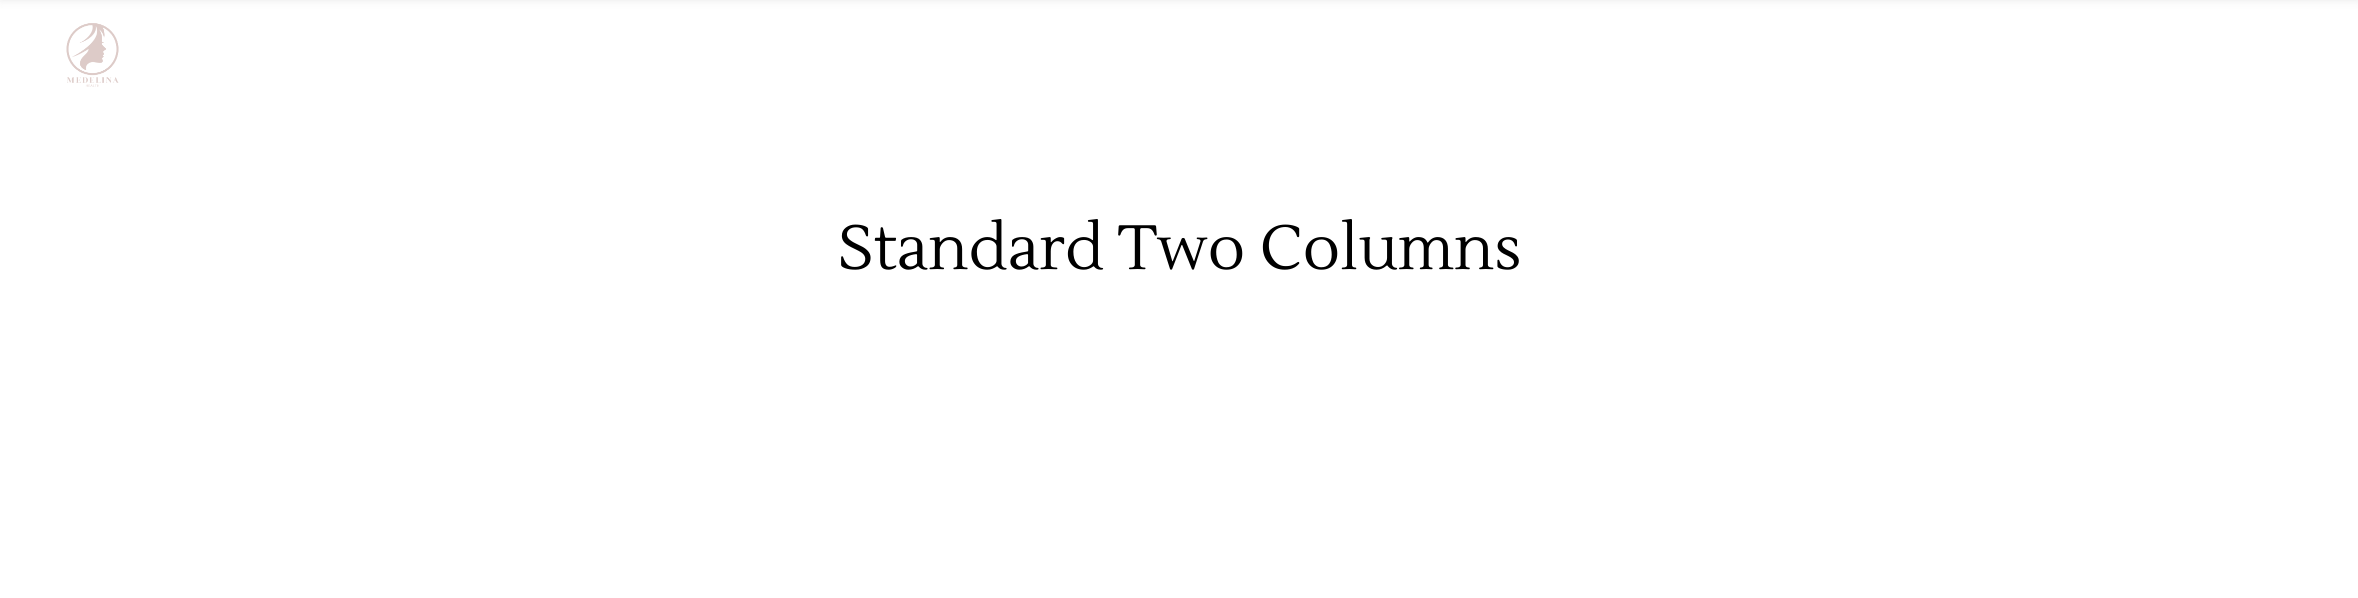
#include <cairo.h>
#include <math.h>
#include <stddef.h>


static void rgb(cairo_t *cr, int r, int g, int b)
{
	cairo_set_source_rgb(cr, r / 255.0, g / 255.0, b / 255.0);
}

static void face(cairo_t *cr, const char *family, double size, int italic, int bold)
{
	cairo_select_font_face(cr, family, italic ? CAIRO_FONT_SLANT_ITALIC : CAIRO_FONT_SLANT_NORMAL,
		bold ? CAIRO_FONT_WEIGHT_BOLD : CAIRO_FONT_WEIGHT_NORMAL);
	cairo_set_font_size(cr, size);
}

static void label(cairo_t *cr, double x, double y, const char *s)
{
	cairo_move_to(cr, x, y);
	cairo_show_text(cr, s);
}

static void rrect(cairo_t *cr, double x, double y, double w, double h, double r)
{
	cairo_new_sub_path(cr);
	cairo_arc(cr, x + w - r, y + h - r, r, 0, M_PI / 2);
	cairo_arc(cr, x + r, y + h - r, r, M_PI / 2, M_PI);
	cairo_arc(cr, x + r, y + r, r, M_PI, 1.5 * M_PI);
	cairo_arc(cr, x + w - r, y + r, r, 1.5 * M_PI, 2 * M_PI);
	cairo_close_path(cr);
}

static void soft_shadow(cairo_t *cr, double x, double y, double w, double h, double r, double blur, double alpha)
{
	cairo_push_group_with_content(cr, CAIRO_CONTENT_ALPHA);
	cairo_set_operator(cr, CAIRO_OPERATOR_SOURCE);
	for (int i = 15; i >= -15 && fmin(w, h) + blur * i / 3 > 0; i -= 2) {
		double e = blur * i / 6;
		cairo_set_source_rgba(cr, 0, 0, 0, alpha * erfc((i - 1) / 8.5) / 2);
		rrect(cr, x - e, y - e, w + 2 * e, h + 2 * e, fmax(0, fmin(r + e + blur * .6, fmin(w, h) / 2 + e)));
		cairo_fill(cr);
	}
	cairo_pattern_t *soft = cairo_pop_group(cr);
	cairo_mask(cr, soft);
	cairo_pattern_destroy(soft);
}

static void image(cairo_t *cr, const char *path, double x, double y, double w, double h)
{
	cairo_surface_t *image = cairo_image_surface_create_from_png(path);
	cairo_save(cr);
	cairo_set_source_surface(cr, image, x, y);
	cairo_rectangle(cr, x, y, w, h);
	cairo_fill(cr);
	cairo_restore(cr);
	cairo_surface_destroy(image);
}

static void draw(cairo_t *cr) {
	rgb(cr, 255, 255, 255);
	cairo_paint(cr);
	rgb(cr, 0, 0, 0);
	soft_shadow(cr, 0, -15, 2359, 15, 0, 5, 0.09);
	image(cr, "image0.png", 66, 23, 53, 64);
	face(cr, "Lustria", 62.5, 0, 0);
	rgb(cr, 0, 0, 0);
	label(cr, 838, 269, "Standard Two Columns");
}

int main(void) {
	cairo_surface_t *surface = cairo_image_surface_create(CAIRO_FORMAT_RGB24, 2358, 598);
	cairo_t *cr = cairo_create(surface);
	cairo_font_options_t *options = cairo_font_options_create();
	cairo_font_options_set_hint_metrics(options, CAIRO_HINT_METRICS_OFF);
	cairo_font_options_set_hint_style(options, CAIRO_HINT_STYLE_NONE);
	cairo_set_font_options(cr, options);
	cairo_set_miter_limit(cr, 4);
	draw(cr);
	cairo_surface_write_to_png(surface, "render.png");
	cairo_font_options_destroy(options);
	cairo_destroy(cr);
	cairo_surface_destroy(surface);
	return 0;
}
